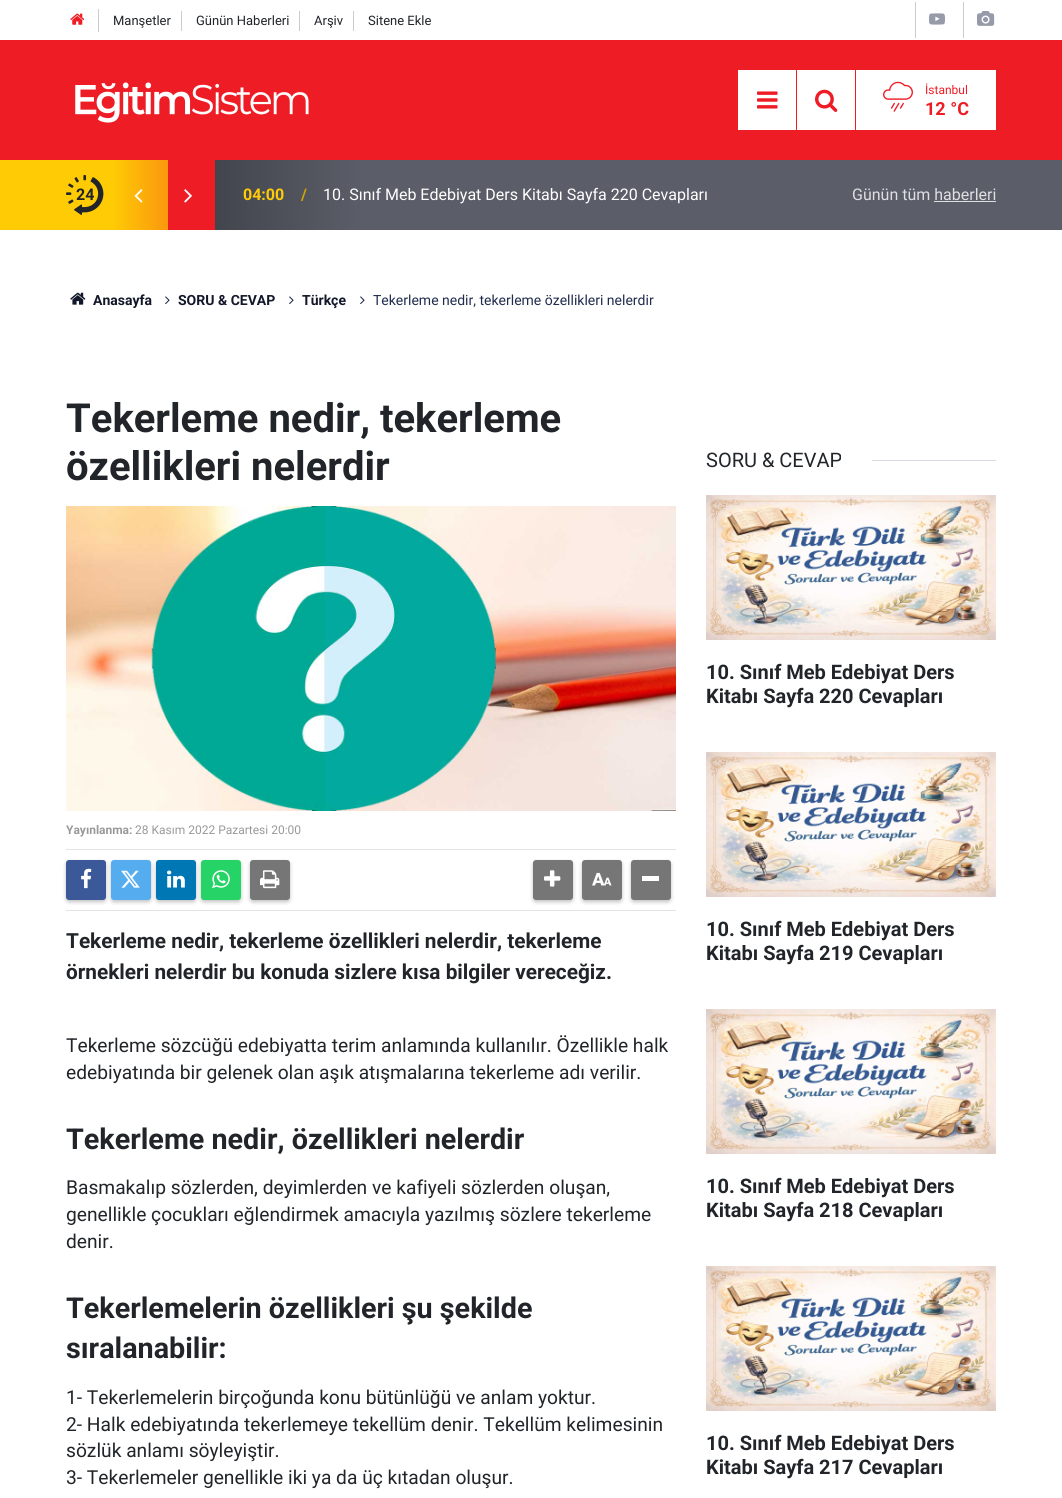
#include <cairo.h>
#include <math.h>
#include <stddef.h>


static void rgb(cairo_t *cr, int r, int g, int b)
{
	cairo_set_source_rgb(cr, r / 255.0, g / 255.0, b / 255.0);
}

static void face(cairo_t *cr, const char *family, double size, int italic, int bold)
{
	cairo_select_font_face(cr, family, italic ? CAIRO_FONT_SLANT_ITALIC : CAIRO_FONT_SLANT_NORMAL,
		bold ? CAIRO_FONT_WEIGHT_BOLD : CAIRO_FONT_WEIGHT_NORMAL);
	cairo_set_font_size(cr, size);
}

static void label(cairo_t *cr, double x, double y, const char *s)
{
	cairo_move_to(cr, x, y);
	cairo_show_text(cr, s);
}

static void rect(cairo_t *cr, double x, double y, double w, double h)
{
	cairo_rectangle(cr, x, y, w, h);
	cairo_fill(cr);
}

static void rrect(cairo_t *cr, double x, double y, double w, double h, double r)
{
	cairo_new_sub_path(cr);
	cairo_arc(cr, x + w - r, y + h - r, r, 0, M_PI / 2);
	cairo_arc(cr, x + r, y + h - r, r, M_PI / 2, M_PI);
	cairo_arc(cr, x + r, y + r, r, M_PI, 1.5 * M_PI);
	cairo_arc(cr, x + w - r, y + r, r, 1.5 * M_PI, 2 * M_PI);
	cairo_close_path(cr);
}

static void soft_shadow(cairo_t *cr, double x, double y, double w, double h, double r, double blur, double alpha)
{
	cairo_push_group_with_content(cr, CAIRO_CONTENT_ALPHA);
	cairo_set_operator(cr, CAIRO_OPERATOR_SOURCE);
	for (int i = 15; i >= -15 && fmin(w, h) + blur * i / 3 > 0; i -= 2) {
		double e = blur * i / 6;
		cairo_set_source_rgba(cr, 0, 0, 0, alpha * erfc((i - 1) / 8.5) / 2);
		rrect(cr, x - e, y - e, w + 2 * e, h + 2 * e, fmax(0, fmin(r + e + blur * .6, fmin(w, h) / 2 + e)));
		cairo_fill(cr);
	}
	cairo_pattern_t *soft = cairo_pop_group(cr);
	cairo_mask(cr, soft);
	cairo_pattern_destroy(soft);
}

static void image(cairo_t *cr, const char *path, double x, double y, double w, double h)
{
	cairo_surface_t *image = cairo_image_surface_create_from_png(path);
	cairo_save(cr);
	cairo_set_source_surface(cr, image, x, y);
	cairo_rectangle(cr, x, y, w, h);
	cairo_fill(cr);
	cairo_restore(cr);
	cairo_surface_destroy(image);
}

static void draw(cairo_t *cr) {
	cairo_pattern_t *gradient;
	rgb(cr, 255, 255, 255);
	cairo_paint(cr);
	rgb(cr, 238, 28, 36);
	rect(cr, 0, 40, 1062, 120);
	rgb(cr, 204, 204, 204);
	rect(cr, 98, 9, 1, 23);
	image(cr, "image0.png", 70, 13, 15, 12);
	rect(cr, 181, 11, 1, 20);
	face(cr, "Roboto", 13, 0, 0);
	rgb(cr, 33, 37, 41);
	label(cr, 113, 25, "Manşetler");
	rgb(cr, 204, 204, 204);
	rect(cr, 299, 11, 1, 20);
	rgb(cr, 33, 37, 41);
	label(cr, 196, 25, "Günün Haberleri");
	rgb(cr, 204, 204, 204);
	rect(cr, 353, 11, 1, 20);
	rgb(cr, 33, 37, 41);
	label(cr, 314, 25, "Arşiv");
	label(cr, 368, 25, "Sitene Ekle");
	rgb(cr, 204, 204, 204);
	rect(cr, 915, 2, 1, 36);
	image(cr, "image1.png", 929, 13, 16, 12);
	rect(cr, 963, 2, 1, 36);
	image(cr, "image2.png", 977, 11, 18, 15);
	image(cr, "image3.png", 75, 82, 234, 41);
	rgb(cr, 255, 255, 255);
	rect(cr, 738, 70, 58, 60);
	image(cr, "image4.png", 757, 91, 21, 18);
	rect(cr, 797, 70, 58, 60);
	image(cr, "image5.png", 815, 89, 23, 23);
	rect(cr, 856, 70, 140, 60);
	image(cr, "image6.png", 883, 81, 30, 31);
	face(cr, "Roboto", 12, 0, 0);
	rgb(cr, 238, 28, 36);
	label(cr, 925, 94, "İstanbul");
	face(cr, "Roboto", 18, 0, 1);
	label(cr, 925, 115, "12 °C");
	rgb(cr, 255, 203, 5);
	rect(cr, 0, 160, 66, 70);
	rgb(cr, 91, 94, 104);
	rect(cr, 996, 160, 66, 70);
	gradient = cairo_pattern_create_linear(66, 195, 996, 195);
	cairo_pattern_add_color_stop_rgba(gradient, 0.05, 1, 0.796, 0.02, 1);
	cairo_pattern_add_color_stop_rgba(gradient, 0.11, 0.98, 0.592, 0.055, 1);
	cairo_pattern_add_color_stop_rgba(gradient, 0.11, 0.933, 0.11, 0.141, 1);
	cairo_pattern_add_color_stop_rgba(gradient, 0.16, 0.933, 0.11, 0.141, 1);
	cairo_pattern_add_color_stop_rgba(gradient, 0.16, 0.263, 0.271, 0.302, 1);
	cairo_pattern_add_color_stop_rgba(gradient, 0.32, 0.357, 0.369, 0.408, 1);
	cairo_set_source(cr, gradient);
	cairo_pattern_destroy(gradient);
	rect(cr, 66, 160, 930, 70);
	image(cr, "image7.png", 66, 175, 38, 40);
	face(cr, "Roboto", 16, 0, 1);
	rgb(cr, 33, 37, 41);
	label(cr, 76, 200, "24");
	image(cr, "image8.png", 134, 189, 9, 14);
	image(cr, "image9.png", 184, 189, 8, 14);
	rgb(cr, 255, 203, 5);
	label(cr, 243, 200, "04:00");
	rgb(cr, 209, 166, 0);
	label(cr, 301, 200, "/");
	face(cr, "Roboto", 16, 0, 0);
	rgb(cr, 255, 255, 255);
	label(cr, 323, 200, "10. Sınıf Meb Edebiyat Ders Kitabı Sayfa 220 Cevapları");
	rgb(cr, 222, 223, 225);
	label(cr, 852, 200, "Günün tüm haberleri");
	rect(cr, 934, 201, 62, 1);
	image(cr, "image10.png", 70, 292, 16, 13);
	face(cr, "Roboto", 14, 0, 1);
	rgb(cr, 18, 24, 42);
	label(cr, 93, 305, "Anasayfa");
	image(cr, "image11.png", 165, 296, 5, 9);
	label(cr, 178, 305, "SORU & CEVAP");
	image(cr, "image11.png", 289, 296, 5, 9);
	label(cr, 302, 305, "Türkçe");
	image(cr, "image11.png", 360, 296, 5, 9);
	face(cr, "Roboto", 14, 0, 0);
	rgb(cr, 33, 44, 78);
	label(cr, 373, 305, "Tekerleme nedir, tekerleme özellikleri nelerdir");
	face(cr, "Roboto", 40, 0, 1);
	rgb(cr, 33, 37, 41);
	label(cr, 66, 432, "Tekerleme nedir, tekerleme");
	label(cr, 66, 480, "özellikleri nelerdir");
	image(cr, "image12.png", 66, 506, 610, 305);
	face(cr, "Roboto", 12, 0, 1);
	rgb(cr, 153, 153, 153);
	label(cr, 66, 834, "Yayınlanma:");
	face(cr, "Roboto", 12, 0, 0);
	label(cr, 135, 834, "28 Kasım 2022 Pazartesi 20:00");
	rgb(cr, 227, 227, 227);
	rect(cr, 66, 849, 610, 1);
	rect(cr, 66, 910, 610, 1);
	rgb(cr, 50, 50, 50);
	soft_shadow(cr, 66, 862, 40, 40, 3, 2, 0.3);
	rgb(cr, 59, 89, 153);
	rrect(cr, 66, 860, 40, 40, 3);
	cairo_fill(cr);
	image(cr, "image13.png", 81, 868, 11, 21);
	rgb(cr, 50, 50, 50);
	soft_shadow(cr, 111, 862, 40, 40, 3, 2, 0.3);
	rgb(cr, 85, 172, 238);
	rrect(cr, 111, 860, 40, 40, 3);
	cairo_fill(cr);
	image(cr, "image14.png", 121, 870, 19, 18);
	rgb(cr, 50, 50, 50);
	soft_shadow(cr, 156, 862, 40, 40, 3, 2, 0.3);
	rgb(cr, 0, 119, 181);
	rrect(cr, 156, 860, 40, 40, 3);
	cairo_fill(cr);
	image(cr, "image15.png", 167, 870, 18, 18);
	rgb(cr, 50, 50, 50);
	soft_shadow(cr, 201, 862, 40, 40, 3, 2, 0.3);
	rgb(cr, 37, 211, 102);
	rrect(cr, 201, 860, 40, 40, 3);
	cairo_fill(cr);
	image(cr, "image16.png", 212, 870, 18, 19);
	rgb(cr, 50, 50, 50);
	soft_shadow(cr, 250, 862, 40, 40, 3, 2, 0.3);
	rgb(cr, 118, 118, 118);
	rrect(cr, 250, 860, 40, 40, 3);
	cairo_fill(cr);
	image(cr, "image17.png", 260, 870, 20, 19);
	rgb(cr, 50, 50, 50);
	soft_shadow(cr, 533, 862, 40, 40, 3, 2, 0.3);
	rgb(cr, 118, 118, 118);
	rrect(cr, 533, 860, 40, 40, 3);
	cairo_fill(cr);
	image(cr, "image18.png", 544, 870, 17, 17);
	rgb(cr, 50, 50, 50);
	soft_shadow(cr, 582, 862, 40, 40, 3, 2, 0.3);
	rgb(cr, 118, 118, 118);
	rrect(cr, 582, 860, 40, 40, 3);
	cairo_fill(cr);
	image(cr, "image19.png", 592, 872, 20, 14);
	rgb(cr, 50, 50, 50);
	soft_shadow(cr, 631, 862, 40, 40, 3, 2, 0.3);
	rgb(cr, 118, 118, 118);
	rrect(cr, 631, 860, 40, 40, 3);
	cairo_fill(cr);
	rgb(cr, 255, 255, 255);
	rect(cr, 642, 876, 17, 5);
	face(cr, "Roboto", 20.8, 0, 1);
	rgb(cr, 33, 37, 41);
	label(cr, 66, 948, "Tekerleme nedir, tekerleme özellikleri nelerdir, tekerleme");
	label(cr, 66, 979, "örnekleri nelerdir bu konuda sizlere kısa bilgiler vereceğiz.");
	face(cr, "Roboto", 19.2, 0, 0);
	label(cr, 66, 1052, "Tekerleme sözcüğü edebiyatta terim anlamında kullanılır. Özellikle halk");
	label(cr, 66, 1079, "edebiyatında bir gelenek olan aşık atışmalarına tekerleme adı verilir.");
	face(cr, "Roboto", 28.75, 0, 1);
	label(cr, 66, 1149, "Tekerleme nedir, özellikleri nelerdir");
	face(cr, "Roboto", 19.2, 0, 0);
	label(cr, 66, 1194, "Basmakalıp sözlerden, deyimlerden ve kafiyeli sözlerden oluşan,");
	label(cr, 66, 1221, "genellikle çocukları eğlendirmek amacıyla yazılmış sözlere tekerleme");
	label(cr, 66, 1248, "denir.");
	face(cr, "Roboto", 28.75, 0, 1);
	label(cr, 66, 1318, "Tekerlemelerin özellikleri şu şekilde");
	label(cr, 66, 1358, "sıralanabilir:");
	face(cr, "Roboto", 19.2, 0, 0);
	label(cr, 66, 1404, "1- Tekerlemelerin birçoğunda konu bütünlüğü ve anlam yoktur.");
	label(cr, 66, 1431, "2- Halk edebiyatında tekerlemeye tekellüm denir. Tekellüm kelimesinin");
	label(cr, 66, 1457, "sözlük anlamı söyleyiştir.");
	label(cr, 66, 1484, "3- Tekerlemeler genellikle iki ya da üç kıtadan oluşur.");
	face(cr, "Roboto", 20, 0, 0);
	label(cr, 706, 467, "SORU & CEVAP");
	rgb(cr, 217, 219, 226);
	rect(cr, 872, 460, 124, 1);
	image(cr, "image20.png", 706, 495, 290, 145);
	face(cr, "Roboto", 20, 0, 1);
	rgb(cr, 33, 37, 41);
	label(cr, 706, 679, "10. Sınıf Meb Edebiyat Ders");
	label(cr, 706, 703, "Kitabı Sayfa 220 Cevapları");
	image(cr, "image20.png", 706, 752, 290, 145);
	label(cr, 706, 936, "10. Sınıf Meb Edebiyat Ders");
	label(cr, 706, 960, "Kitabı Sayfa 219 Cevapları");
	image(cr, "image20.png", 706, 1009, 290, 145);
	label(cr, 706, 1193, "10. Sınıf Meb Edebiyat Ders");
	label(cr, 706, 1217, "Kitabı Sayfa 218 Cevapları");
	image(cr, "image20.png", 706, 1266, 290, 145);
	label(cr, 706, 1450, "10. Sınıf Meb Edebiyat Ders");
	label(cr, 706, 1474, "Kitabı Sayfa 217 Cevapları");
}

int main(void) {
	cairo_surface_t *surface = cairo_image_surface_create(CAIRO_FORMAT_RGB24, 1062, 1498);
	cairo_t *cr = cairo_create(surface);
	cairo_font_options_t *options = cairo_font_options_create();
	cairo_font_options_set_hint_metrics(options, CAIRO_HINT_METRICS_OFF);
	cairo_font_options_set_hint_style(options, CAIRO_HINT_STYLE_NONE);
	cairo_set_font_options(cr, options);
	cairo_set_miter_limit(cr, 4);
	draw(cr);
	cairo_surface_write_to_png(surface, "render.png");
	cairo_font_options_destroy(options);
	cairo_destroy(cr);
	cairo_surface_destroy(surface);
	return 0;
}
